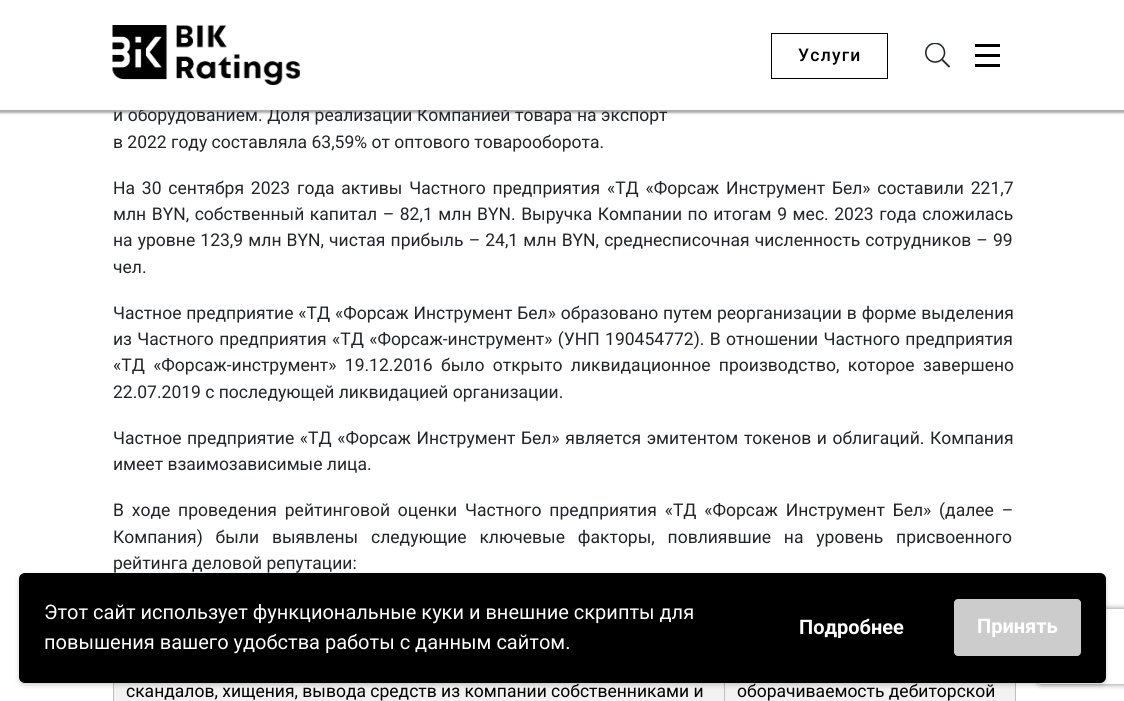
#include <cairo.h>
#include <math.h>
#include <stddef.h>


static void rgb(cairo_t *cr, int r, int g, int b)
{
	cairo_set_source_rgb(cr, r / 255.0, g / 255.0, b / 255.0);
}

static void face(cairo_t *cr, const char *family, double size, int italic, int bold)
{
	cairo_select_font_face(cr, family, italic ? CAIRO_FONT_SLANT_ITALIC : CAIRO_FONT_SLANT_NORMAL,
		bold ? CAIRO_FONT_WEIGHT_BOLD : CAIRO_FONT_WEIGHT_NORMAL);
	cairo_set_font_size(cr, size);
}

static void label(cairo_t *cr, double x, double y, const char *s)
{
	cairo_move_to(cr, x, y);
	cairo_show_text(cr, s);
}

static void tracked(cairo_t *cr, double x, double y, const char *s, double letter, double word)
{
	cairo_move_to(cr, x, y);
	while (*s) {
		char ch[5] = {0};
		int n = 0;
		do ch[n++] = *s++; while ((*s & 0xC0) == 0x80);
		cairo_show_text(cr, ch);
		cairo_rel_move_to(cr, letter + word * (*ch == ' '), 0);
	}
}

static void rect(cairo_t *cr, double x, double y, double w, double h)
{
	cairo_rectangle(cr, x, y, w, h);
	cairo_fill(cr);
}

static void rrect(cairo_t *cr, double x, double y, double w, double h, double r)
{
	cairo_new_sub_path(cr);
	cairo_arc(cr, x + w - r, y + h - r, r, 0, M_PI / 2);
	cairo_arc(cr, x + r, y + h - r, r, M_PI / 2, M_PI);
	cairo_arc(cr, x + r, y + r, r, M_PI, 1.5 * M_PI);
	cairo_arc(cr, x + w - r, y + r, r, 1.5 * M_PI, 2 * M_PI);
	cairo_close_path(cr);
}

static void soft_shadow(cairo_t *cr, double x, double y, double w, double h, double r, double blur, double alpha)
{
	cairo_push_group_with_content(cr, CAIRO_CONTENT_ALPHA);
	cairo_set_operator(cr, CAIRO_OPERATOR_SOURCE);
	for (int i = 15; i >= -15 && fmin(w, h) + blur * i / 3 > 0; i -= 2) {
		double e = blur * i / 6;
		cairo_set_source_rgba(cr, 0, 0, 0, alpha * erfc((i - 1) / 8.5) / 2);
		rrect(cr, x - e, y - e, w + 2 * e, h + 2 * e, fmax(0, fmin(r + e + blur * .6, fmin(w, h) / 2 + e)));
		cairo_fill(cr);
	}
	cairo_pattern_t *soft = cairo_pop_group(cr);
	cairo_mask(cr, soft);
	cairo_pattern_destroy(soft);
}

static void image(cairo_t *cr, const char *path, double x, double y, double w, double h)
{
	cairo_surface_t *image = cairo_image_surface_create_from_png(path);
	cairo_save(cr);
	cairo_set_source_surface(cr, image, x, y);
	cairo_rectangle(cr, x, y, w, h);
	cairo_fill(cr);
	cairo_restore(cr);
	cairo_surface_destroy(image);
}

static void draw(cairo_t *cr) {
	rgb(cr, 255, 255, 255);
	cairo_paint(cr);
	rgb(cr, 0, 0, 0);
	soft_shadow(cr, -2, -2, 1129, 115, 0, 1, 0.33);
	face(cr, "Roboto", 17.5, 0, 0);
	rgb(cr, 33, 37, 41);
	tracked(cr, 113, 121, "и оборудованием. Доля реализации Компанией товара на экспорт", 0, 0.25);
	rgb(cr, 255, 255, 255);
	rect(cr, 0, 0, 1124, 110);
	image(cr, "image0.png", 112, 25, 188, 60);
	cairo_rectangle(cr, 771.5, 33.5, 116, 45);
	rgb(cr, 0, 0, 0);
	cairo_set_line_width(cr, 1);
	cairo_stroke(cr);
	face(cr, "Roboto Medium", 17.5, 0, 0);
	tracked(cr, 798, 61, "Услуги", 1.25, 0);
	image(cr, "image1.png", 925, 43, 25, 25);
	rect(cr, 975, 44, 25, 3);
	rect(cr, 975, 54, 25, 3);
	rect(cr, 975, 64, 25, 3);
	face(cr, "Roboto", 17.5, 0, 0);
	rgb(cr, 33, 37, 41);
	label(cr, 113, 148, "в 2022 году составляла 63,59% от оптового товарооборота.");
	tracked(cr, 113, 194, "На 30 сентября 2023 года активы Частного предприятия «ТД «Форсаж Инструмент Бел» составили 221,7", 0, 2.5);
	tracked(cr, 113, 220, "млн BYN, собственный капитал – 82,1 млн BYN. Выручка Компании по итогам 9 мес. 2023 года сложилась", 0, 1.25);
	tracked(cr, 113, 246, "на уровне 123,9 млн BYN, чистая прибыль – 24,1 млн BYN, среднесписочная численность сотрудников – 99", 0, 0.8);
	label(cr, 113, 273, "чел.");
	tracked(cr, 113, 319, "Частное предприятие «ТД «Форсаж Инструмент Бел» образовано путем реорганизации в форме выделения", 0, 0.5);
	tracked(cr, 113, 345, "из Частного предприятия «ТД «Форсаж-инструмент» (УНП 190454772). В отношении Частного предприятия", 0, 1);
	tracked(cr, 113, 371, "«ТД «Форсаж-инструмент» 19.12.2016 было открыто ликвидационное производство, которое завершено", 0, 4);
	label(cr, 113, 398, "22.07.2019 с последующей ликвидацией организации.");
	tracked(cr, 113, 444, "Частное предприятие «ТД «Форсаж Инструмент Бел» является эмитентом токенов и облигаций. Компания", 0, 1.25);
	label(cr, 113, 470, "имеет взаимозависимые лица.");
	tracked(cr, 113, 516, "В ходе проведения рейтинговой оценки Частного предприятия «ТД «Форсаж Инструмент Бел» (далее –", 0, 3.5);
	tracked(cr, 113, 543, "Компания) были выявлены следующие ключевые факторы, повлиявшие на уровень присвоенного", 0, 8.5);
	label(cr, 113, 569, "рейтинга деловой репутации:");
	rgb(cr, 242, 242, 242);
	rect(cr, 114, 683, 610, 18);
	rgb(cr, 191, 191, 191);
	rect(cr, 724, 683, 1, 18);
	rect(cr, 113, 683, 1, 18);
	rgb(cr, 0, 0, 0);
	label(cr, 126, 697, "скандалов, хищения, вывода средств из компании собственниками и");
	rgb(cr, 242, 242, 242);
	rect(cr, 725, 683, 290, 18);
	rgb(cr, 191, 191, 191);
	rect(cr, 1015, 683, 1, 18);
	rgb(cr, 0, 0, 0);
	label(cr, 737, 697, "оборачиваемость дебиторской");
	cairo_save(cr);
	cairo_set_fill_rule(cr, CAIRO_FILL_RULE_EVEN_ODD);
	cairo_new_path(cr);
	cairo_move_to(cr, 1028, 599);
	cairo_line_to(cr, 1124, 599);
	cairo_line_to(cr, 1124, 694);
	cairo_line_to(cr, 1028, 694);
	cairo_close_path(cr);
	cairo_move_to(cr, 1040.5, 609);
	cairo_line_to(cr, 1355.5, 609);
	cairo_curve_to(cr, 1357, 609, 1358, 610, 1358, 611.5);
	cairo_line_to(cr, 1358, 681.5);
	cairo_curve_to(cr, 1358, 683, 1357, 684, 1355.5, 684);
	cairo_line_to(cr, 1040.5, 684);
	cairo_curve_to(cr, 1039, 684, 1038, 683, 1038, 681.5);
	cairo_line_to(cr, 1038, 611.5);
	cairo_curve_to(cr, 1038, 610, 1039, 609, 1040.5, 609);
	cairo_close_path(cr);
	cairo_clip(cr);
	rgb(cr, 128, 128, 128);
	soft_shadow(cr, 1038, 609, 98, 75, 2.5, 3, 1);
	cairo_restore(cr);
	rgb(cr, 0, 0, 0);
	soft_shadow(cr, 19, 575, 1087, 110, 6, 2.5, 0.2);
	rgb(cr, 0, 0, 0);
	rrect(cr, 19, 573, 1087, 110, 6);
	cairo_fill(cr);
	face(cr, "Roboto", 20, 0, 0);
	rgb(cr, 255, 255, 255);
	label(cr, 44, 619, "Этот сайт использует функциональные куки и внешние скрипты для");
	label(cr, 44, 649, "повышения вашего удобства работы с данным сайтом.");
	face(cr, "Roboto", 20, 0, 1);
	label(cr, 799, 634, "Подробнее");
	rgb(cr, 204, 204, 204);
	rrect(cr, 954.5, 599.5, 126, 56, 3.5);
	cairo_fill_preserve(cr);
	cairo_stroke(cr);
	rgb(cr, 255, 255, 255);
	label(cr, 977, 633, "Принять");
}

int main(void) {
	cairo_surface_t *surface = cairo_image_surface_create(CAIRO_FORMAT_RGB24, 1124, 701);
	cairo_t *cr = cairo_create(surface);
	cairo_font_options_t *options = cairo_font_options_create();
	cairo_font_options_set_hint_metrics(options, CAIRO_HINT_METRICS_OFF);
	cairo_font_options_set_hint_style(options, CAIRO_HINT_STYLE_NONE);
	cairo_set_font_options(cr, options);
	cairo_set_miter_limit(cr, 4);
	draw(cr);
	cairo_surface_write_to_png(surface, "render.png");
	cairo_font_options_destroy(options);
	cairo_destroy(cr);
	cairo_surface_destroy(surface);
	return 0;
}
